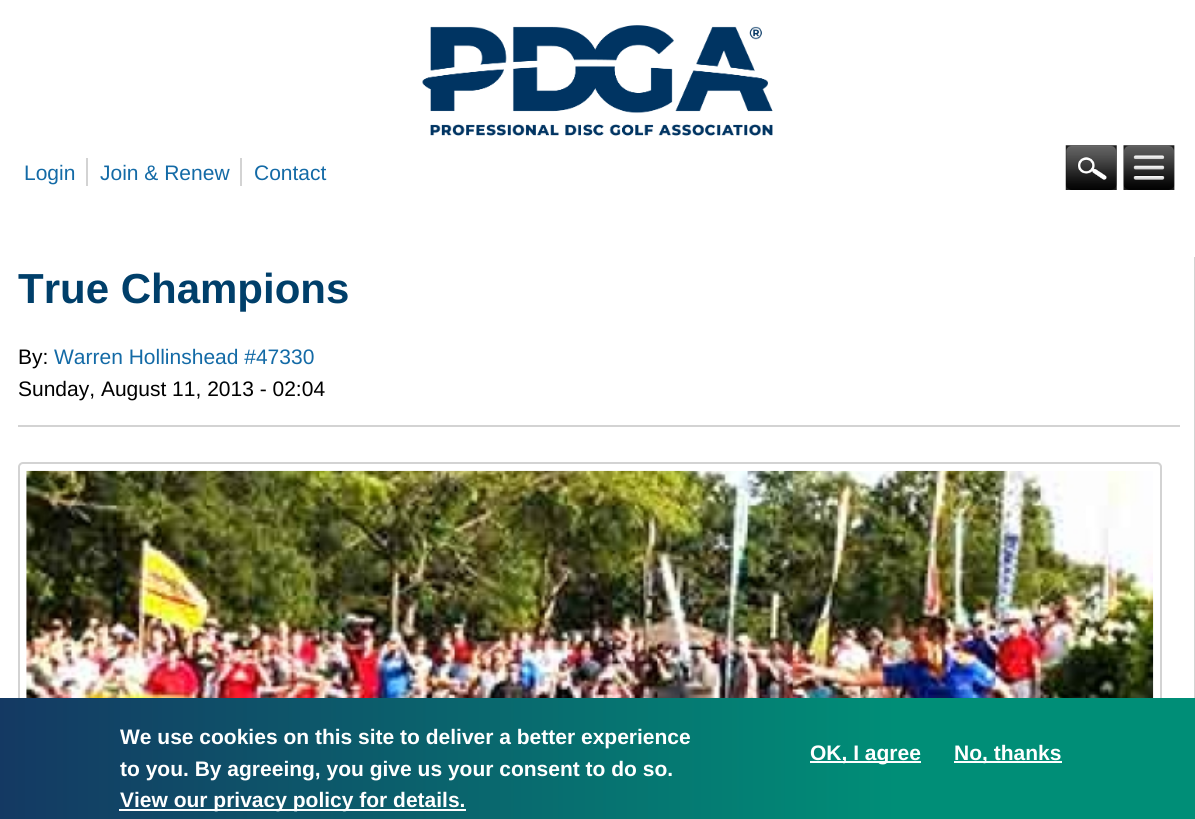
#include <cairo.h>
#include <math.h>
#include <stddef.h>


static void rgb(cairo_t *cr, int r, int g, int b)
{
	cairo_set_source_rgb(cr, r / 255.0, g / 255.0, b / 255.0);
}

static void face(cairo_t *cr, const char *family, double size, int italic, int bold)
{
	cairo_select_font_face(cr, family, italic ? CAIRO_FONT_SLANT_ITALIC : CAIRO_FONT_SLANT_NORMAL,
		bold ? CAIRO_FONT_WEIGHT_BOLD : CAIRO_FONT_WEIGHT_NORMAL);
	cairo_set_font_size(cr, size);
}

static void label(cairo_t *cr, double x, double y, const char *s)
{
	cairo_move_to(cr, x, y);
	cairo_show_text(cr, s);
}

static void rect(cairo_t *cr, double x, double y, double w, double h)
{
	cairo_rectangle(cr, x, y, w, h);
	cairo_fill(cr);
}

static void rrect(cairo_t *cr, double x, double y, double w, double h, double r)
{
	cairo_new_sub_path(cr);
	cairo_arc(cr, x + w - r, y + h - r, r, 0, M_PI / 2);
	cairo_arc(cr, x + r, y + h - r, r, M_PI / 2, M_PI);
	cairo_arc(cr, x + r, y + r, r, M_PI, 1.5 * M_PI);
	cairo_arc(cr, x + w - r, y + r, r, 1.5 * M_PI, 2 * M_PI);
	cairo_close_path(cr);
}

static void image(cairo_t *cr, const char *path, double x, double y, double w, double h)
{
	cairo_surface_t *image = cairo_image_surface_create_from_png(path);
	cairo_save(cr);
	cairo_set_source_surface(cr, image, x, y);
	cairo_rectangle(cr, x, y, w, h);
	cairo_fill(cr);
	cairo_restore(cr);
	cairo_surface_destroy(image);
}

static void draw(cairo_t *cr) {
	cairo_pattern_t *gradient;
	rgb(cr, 255, 255, 255);
	cairo_paint(cr);
	image(cr, "image0.png", 422, 25, 351, 111);
	face(cr, "Liberation Sans", 21, 0, 0);
	rgb(cr, 19, 106, 166);
	label(cr, 24, 180, "Login");
	rgb(cr, 211, 211, 211);
	rect(cr, 86, 158, 2, 28);
	rgb(cr, 19, 106, 166);
	label(cr, 100, 180, "Join & Renew");
	rgb(cr, 211, 211, 211);
	rect(cr, 240, 158, 2, 28);
	rgb(cr, 19, 106, 166);
	label(cr, 254, 180, "Contact");
	image(cr, "image1.png", 1065, 145, 52, 45);
	image(cr, "image2.png", 1123, 145, 52, 45);
	rgb(cr, 211, 211, 211);
	rect(cr, 1194, 257, 1, 441);
	face(cr, "Liberation Sans", 42, 0, 1);
	rgb(cr, 0, 63, 106);
	label(cr, 18, 303, "True Champions");
	face(cr, "Liberation Sans", 21, 0, 0);
	rgb(cr, 0, 0, 0);
	label(cr, 18, 364, "By:");
	rgb(cr, 19, 106, 166);
	label(cr, 54, 364, "Warren Hollinshead #47330");
	rgb(cr, 0, 0, 0);
	label(cr, 18, 396, "Sunday, August 11, 2013 - 02:04");
	rgb(cr, 211, 211, 211);
	rect(cr, 18, 425, 1162, 2);
	rrect(cr, 19, 463, 1142, 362, 4);
	cairo_stroke(cr);
	image(cr, "image3.png", 26, 470, 1128, 228);
	gradient = cairo_pattern_create_linear(0, 765, 1195, 765);
	cairo_pattern_add_color_stop_rgba(gradient, 0, 0.078, 0.224, 0.388, 1);
	cairo_pattern_add_color_stop_rgba(gradient, 0.75, 0, 0.557, 0.467, 1);
	cairo_set_source(cr, gradient);
	cairo_pattern_destroy(gradient);
	rect(cr, 0, 698, 1195, 121);
	face(cr, "Liberation Sans", 21, 0, 1);
	rgb(cr, 255, 255, 255);
	label(cr, 120, 744, "We use cookies on this site to deliver a better experience");
	label(cr, 120, 776, "to you. By agreeing, you give us your consent to do so.");
	rect(cr, 119, 809, 347, 2);
	label(cr, 120, 807, "View our privacy policy for details.");
	rect(cr, 810, 761, 111, 2);
	label(cr, 810, 760, "OK, I agree");
	rect(cr, 954, 761, 108, 2);
	label(cr, 954, 760, "No, thanks");
}

int main(void) {
	cairo_surface_t *surface = cairo_image_surface_create(CAIRO_FORMAT_RGB24, 1195, 819);
	cairo_t *cr = cairo_create(surface);
	cairo_font_options_t *options = cairo_font_options_create();
	cairo_font_options_set_hint_metrics(options, CAIRO_HINT_METRICS_OFF);
	cairo_font_options_set_hint_style(options, CAIRO_HINT_STYLE_NONE);
	cairo_set_font_options(cr, options);
	cairo_set_miter_limit(cr, 4);
	draw(cr);
	cairo_surface_write_to_png(surface, "render.png");
	cairo_font_options_destroy(options);
	cairo_destroy(cr);
	cairo_surface_destroy(surface);
	return 0;
}
